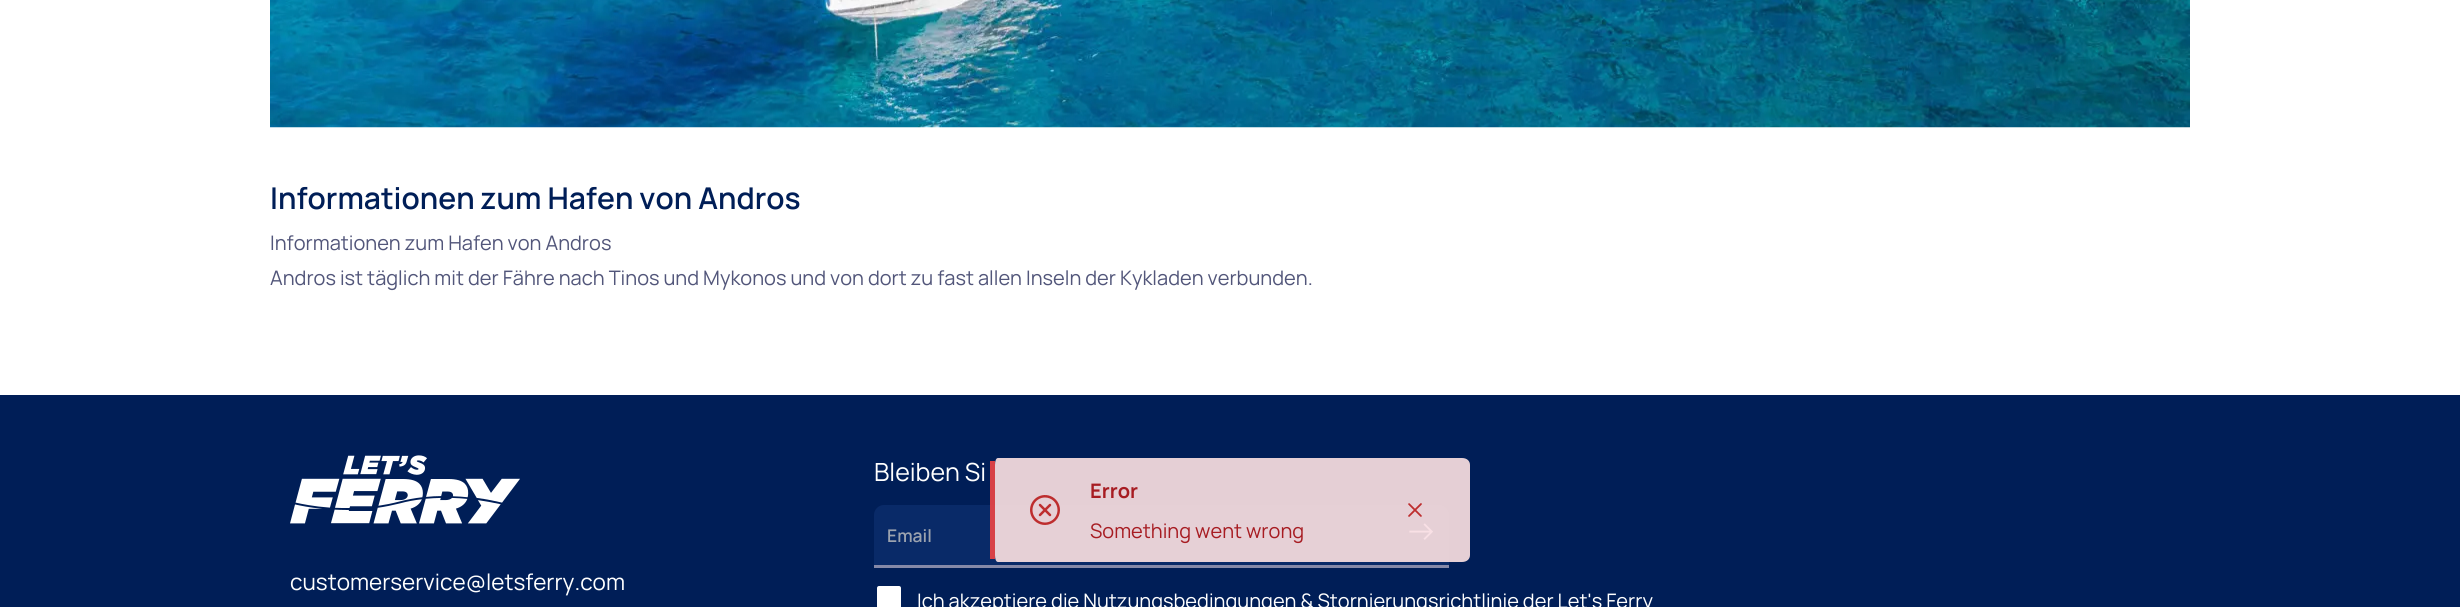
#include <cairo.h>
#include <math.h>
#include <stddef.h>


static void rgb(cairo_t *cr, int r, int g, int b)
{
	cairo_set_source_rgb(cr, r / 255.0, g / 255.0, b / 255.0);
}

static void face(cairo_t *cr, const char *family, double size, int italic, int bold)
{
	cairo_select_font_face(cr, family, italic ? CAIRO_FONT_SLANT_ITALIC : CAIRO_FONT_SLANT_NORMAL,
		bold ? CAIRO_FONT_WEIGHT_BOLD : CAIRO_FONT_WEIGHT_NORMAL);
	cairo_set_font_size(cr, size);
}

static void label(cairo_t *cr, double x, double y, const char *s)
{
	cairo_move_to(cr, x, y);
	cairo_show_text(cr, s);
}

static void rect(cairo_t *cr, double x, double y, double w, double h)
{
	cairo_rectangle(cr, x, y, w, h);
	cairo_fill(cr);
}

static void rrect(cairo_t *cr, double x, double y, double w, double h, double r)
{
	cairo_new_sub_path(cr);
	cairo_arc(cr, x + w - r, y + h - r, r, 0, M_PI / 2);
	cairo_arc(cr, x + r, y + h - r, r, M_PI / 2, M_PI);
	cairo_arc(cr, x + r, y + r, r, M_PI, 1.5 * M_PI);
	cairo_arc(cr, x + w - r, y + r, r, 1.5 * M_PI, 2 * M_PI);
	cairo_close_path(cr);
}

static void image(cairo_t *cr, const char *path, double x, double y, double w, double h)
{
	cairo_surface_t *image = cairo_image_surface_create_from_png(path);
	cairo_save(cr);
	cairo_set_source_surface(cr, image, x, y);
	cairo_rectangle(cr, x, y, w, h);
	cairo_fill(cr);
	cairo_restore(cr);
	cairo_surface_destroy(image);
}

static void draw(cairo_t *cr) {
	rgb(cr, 255, 255, 255);
	cairo_paint(cr);
	image(cr, "image0.png", 270, 0, 1920, 128);
	face(cr, "Manrope SemiBold", 30, 0, 0);
	rgb(cr, 0, 30, 87);
	label(cr, 270, 209, "Informationen zum Hafen von Andros");
	face(cr, "Manrope", 20, 0, 0);
	rgb(cr, 82, 86, 122);
	label(cr, 270, 250, "Informationen zum Hafen von Andros");
	label(cr, 270, 285, "Andros ist täglich mit der Fähre nach Tinos und Mykonos und von dort zu fast allen Inseln der Kykladen verbunden.");
	rgb(cr, 0, 30, 87);
	rect(cr, 0, 395, 2460, 212);
	image(cr, "image1.png", 290, 455, 230, 69);
	face(cr, "Manrope", 22.5, 0, 0);
	rgb(cr, 255, 255, 255);
	label(cr, 290, 590, "customerservice@letsferry.com");
	face(cr, "Manrope", 25, 0, 0);
	label(cr, 874, 481, "Bleiben Si");
	rgb(cr, 9, 42, 104);
	cairo_new_path(cr);
	cairo_move_to(cr, 884, 505);
	cairo_line_to(cr, 1439, 505);
	cairo_curve_to(cr, 1444.5, 505, 1449, 509.5, 1449, 515);
	cairo_line_to(cr, 1449, 565);
	cairo_line_to(cr, 874, 565);
	cairo_line_to(cr, 874, 515);
	cairo_curve_to(cr, 874, 509.5, 878.5, 505, 884, 505);
	cairo_close_path(cr);
	cairo_fill(cr);
	rgb(cr, 133, 137, 168);
	rect(cr, 874, 565, 575, 3);
	face(cr, "Manrope SemiBold", 17.5, 0, 0);
	rgb(cr, 156, 163, 175);
	label(cr, 887, 542, "Email");
	image(cr, "image2.png", 1409, 523, 24, 17);
	rgb(cr, 255, 255, 255);
	rrect(cr, 875.5, 584.5, 27, 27, 3.5);
	cairo_fill_preserve(cr);
	rgb(cr, 0, 30, 87);
	cairo_set_line_width(cr, 3);
	cairo_stroke(cr);
	face(cr, "Manrope", 20, 0, 0);
	rgb(cr, 255, 255, 255);
	label(cr, 917, 608, "Ich akzeptiere die Nutzungsbedingungen & Stornierungsrichtlinie der Let's Ferry");
	cairo_set_source_rgba(cr, 0.996, 0.886, 0.886, 0.9);
	cairo_new_path(cr);
	cairo_move_to(cr, 998, 458);
	cairo_line_to(cr, 1462, 458);
	cairo_curve_to(cr, 1467, 458, 1470, 461, 1470, 465);
	cairo_line_to(cr, 1470, 555);
	cairo_curve_to(cr, 1470, 559, 1467, 562, 1462, 562);
	cairo_line_to(cr, 998, 562);
	cairo_curve_to(cr, 996, 562, 995, 559, 995, 555);
	cairo_line_to(cr, 995, 465);
	cairo_curve_to(cr, 995, 461, 996, 458, 998, 458);
	cairo_close_path(cr);
	cairo_fill(cr);
	cairo_set_source_rgba(cr, 0.937, 0.267, 0.267, 0.9);
	rect(cr, 990, 461, 5, 98);
	image(cr, "image3.png", 1030, 495, 30, 30);
	face(cr, "Manrope", 20, 0, 1);
	rgb(cr, 167, 28, 34);
	label(cr, 1090, 498, "Error");
	face(cr, "Manrope", 20, 0, 0);
	label(cr, 1090, 538, "Something went wrong");
	image(cr, "image4.png", 1408, 503, 14, 14);
}

int main(void) {
	cairo_surface_t *surface = cairo_image_surface_create(CAIRO_FORMAT_RGB24, 2460, 607);
	cairo_t *cr = cairo_create(surface);
	cairo_font_options_t *options = cairo_font_options_create();
	cairo_font_options_set_hint_metrics(options, CAIRO_HINT_METRICS_OFF);
	cairo_font_options_set_hint_style(options, CAIRO_HINT_STYLE_NONE);
	cairo_set_font_options(cr, options);
	cairo_set_miter_limit(cr, 4);
	draw(cr);
	cairo_surface_write_to_png(surface, "render.png");
	cairo_font_options_destroy(options);
	cairo_destroy(cr);
	cairo_surface_destroy(surface);
	return 0;
}
